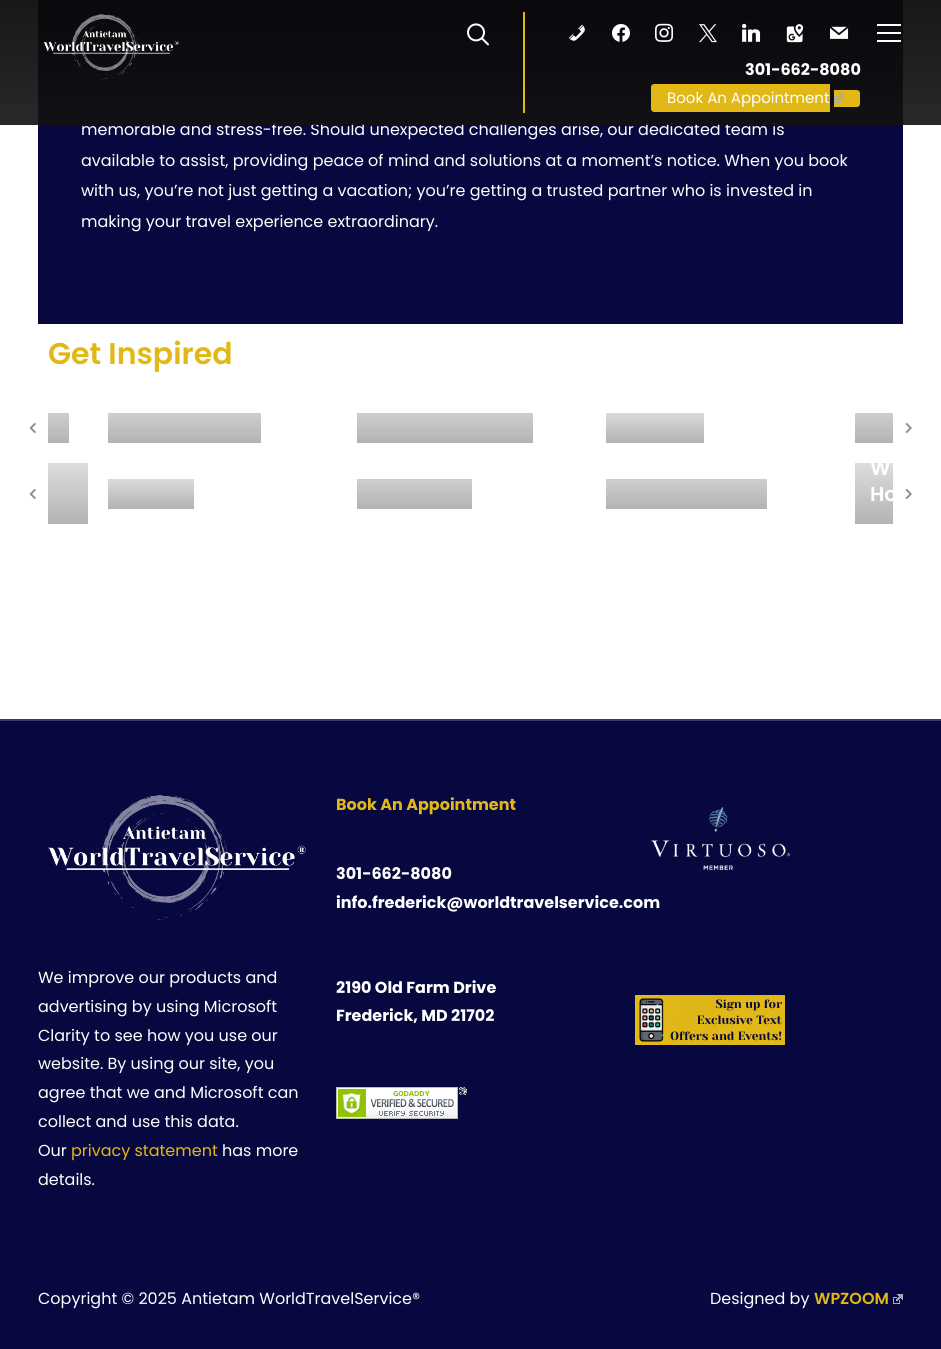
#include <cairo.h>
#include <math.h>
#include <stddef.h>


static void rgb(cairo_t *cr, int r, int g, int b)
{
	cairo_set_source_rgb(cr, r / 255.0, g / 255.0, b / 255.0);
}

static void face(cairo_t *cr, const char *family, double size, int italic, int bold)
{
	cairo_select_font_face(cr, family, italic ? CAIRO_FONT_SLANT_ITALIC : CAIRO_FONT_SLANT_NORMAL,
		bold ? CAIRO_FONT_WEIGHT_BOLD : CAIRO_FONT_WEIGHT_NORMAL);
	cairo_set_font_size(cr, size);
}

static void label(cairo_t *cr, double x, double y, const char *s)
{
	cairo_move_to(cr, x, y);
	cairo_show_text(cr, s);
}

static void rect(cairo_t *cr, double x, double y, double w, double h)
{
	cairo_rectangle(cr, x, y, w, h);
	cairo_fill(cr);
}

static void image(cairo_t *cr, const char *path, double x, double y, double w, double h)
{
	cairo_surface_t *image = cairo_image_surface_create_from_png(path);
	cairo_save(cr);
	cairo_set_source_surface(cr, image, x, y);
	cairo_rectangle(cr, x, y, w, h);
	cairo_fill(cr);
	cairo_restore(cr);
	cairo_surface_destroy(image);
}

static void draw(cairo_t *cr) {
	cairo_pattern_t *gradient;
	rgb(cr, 255, 255, 255);
	cairo_paint(cr);
	rgb(cr, 8, 8, 64);
	rect(cr, 38, 0, 865, 324);
	face(cr, "Poppins", 16, 0, 0);
	rgb(cr, 255, 255, 255);
	label(cr, 81, 135, "memorable and stress-free. Should unexpected challenges arise, our dedicated team is");
	cairo_set_source_rgba(cr, 0.067, 0.067, 0.067, 0.9);
	rect(cr, 0, 0, 941, 125);
	gradient = cairo_pattern_create_linear(471, 0, 471, 125);
	cairo_pattern_add_color_stop_rgba(gradient, 0.01, 0, 0, 0, 0.4);
	cairo_pattern_add_color_stop_rgba(gradient, 1, 0, 0, 0, 0);
	cairo_set_source(cr, gradient);
	cairo_pattern_destroy(gradient);
	rect(cr, 0, 0, 941, 105);
	image(cr, "image0.png", 43, 14, 136, 66);
	image(cr, "image1.png", 467, 23, 22, 23);
	rgb(cr, 255, 255, 255);
	rect(cr, 877, 24, 24, 2);
	rect(cr, 877, 32, 24, 2);
	rect(cr, 877, 40, 24, 2);
	rgb(cr, 225, 184, 21);
	rect(cr, 523, 12, 2, 101);
	image(cr, "image2.png", 569, 24, 16, 17);
	image(cr, "image3.png", 612, 24, 18, 18);
	image(cr, "image4.png", 655, 23, 18, 19);
	image(cr, "image5.png", 699, 24, 18, 19);
	image(cr, "image6.png", 742, 23, 19, 19);
	image(cr, "image7.png", 786, 24, 18, 19);
	image(cr, "image8.png", 830, 26, 19, 13);
	face(cr, "Poppins", 16, 0, 1);
	rgb(cr, 255, 255, 255);
	label(cr, 745, 75, "301-662-8080");
	rgb(cr, 225, 184, 21);
	cairo_new_path(cr);
	cairo_move_to(cr, 654, 84);
	cairo_line_to(cr, 830, 84);
	cairo_line_to(cr, 830, 112);
	cairo_line_to(cr, 654, 112);
	cairo_curve_to(cr, 652.5, 112, 651, 110.5, 651, 109);
	cairo_line_to(cr, 651, 87);
	cairo_curve_to(cr, 651, 85.5, 652.5, 84, 654, 84);
	cairo_close_path(cr);
	cairo_fill(cr);
	cairo_new_path(cr);
	cairo_move_to(cr, 834, 90);
	cairo_line_to(cr, 857, 90);
	cairo_curve_to(cr, 858.5, 90, 860, 91.5, 860, 93);
	cairo_line_to(cr, 860, 104);
	cairo_curve_to(cr, 860, 105.5, 858.5, 107, 857, 107);
	cairo_line_to(cr, 834, 107);
	cairo_close_path(cr);
	cairo_fill(cr);
	face(cr, "Poppins", 15, 0, 0);
	rgb(cr, 255, 255, 255);
	label(cr, 667, 103, "Book An Appointment");
	image(cr, "image9.png", 834, 93, 10, 10);
	face(cr, "Poppins", 16, 0, 0);
	label(cr, 81, 166, "available to assist, providing peace of mind and solutions at a moment’s notice. When you book");
	label(cr, 81, 196, "with us, you’re not just getting a vacation; you’re getting a trusted partner who is invested in");
	label(cr, 81, 227, "making your travel experience extraordinary.");
	face(cr, "Poppins SemiBold", 30, 0, 0);
	rgb(cr, 225, 184, 21);
	label(cr, 48, 364, "Get Inspired");
	image(cr, "image10.png", 29, 423, 7, 10);
	gradient = cairo_pattern_create_linear(-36, 359, -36, 443);
	cairo_pattern_add_color_stop_rgba(gradient, 0, 1, 1, 1, 1);
	cairo_pattern_add_color_stop_rgba(gradient, 1, 0.702, 0.702, 0.702, 1);
	cairo_set_source(cr, gradient);
	cairo_pattern_destroy(gradient);
	rect(cr, 48, 413, 21, 30);
	gradient = cairo_pattern_create_linear(185, 359, 185, 443);
	cairo_pattern_add_color_stop_rgba(gradient, 0, 1, 1, 1, 1);
	cairo_pattern_add_color_stop_rgba(gradient, 1, 0.702, 0.702, 0.702, 1);
	cairo_set_source(cr, gradient);
	cairo_pattern_destroy(gradient);
	rect(cr, 108, 413, 153, 30);
	gradient = cairo_pattern_create_linear(445, 359, 445, 443);
	cairo_pattern_add_color_stop_rgba(gradient, 0, 1, 1, 1, 1);
	cairo_pattern_add_color_stop_rgba(gradient, 1, 0.702, 0.702, 0.702, 1);
	cairo_set_source(cr, gradient);
	cairo_pattern_destroy(gradient);
	rect(cr, 357, 413, 176, 30);
	gradient = cairo_pattern_create_linear(655, 385, 655, 443);
	cairo_pattern_add_color_stop_rgba(gradient, 0, 1, 1, 1, 1);
	cairo_pattern_add_color_stop_rgba(gradient, 1, 0.702, 0.702, 0.702, 1);
	cairo_set_source(cr, gradient);
	cairo_pattern_destroy(gradient);
	rect(cr, 606, 413, 98, 30);
	gradient = cairo_pattern_create_linear(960, 359, 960, 443);
	cairo_pattern_add_color_stop_rgba(gradient, 0, 1, 1, 1, 1);
	cairo_pattern_add_color_stop_rgba(gradient, 1, 0.702, 0.702, 0.702, 1);
	cairo_set_source(cr, gradient);
	cairo_pattern_destroy(gradient);
	rect(cr, 855, 413, 38, 30);
	image(cr, "image11.png", 905, 423, 7, 10);
	image(cr, "image10.png", 29, 489, 7, 10);
	gradient = cairo_pattern_create_linear(-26, 414, -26, 524);
	cairo_pattern_add_color_stop_rgba(gradient, 0, 1, 1, 1, 1);
	cairo_pattern_add_color_stop_rgba(gradient, 1, 0.702, 0.702, 0.702, 1);
	cairo_set_source(cr, gradient);
	cairo_pattern_destroy(gradient);
	rect(cr, 48, 463, 40, 61);
	gradient = cairo_pattern_create_linear(151, 451, 151, 509);
	cairo_pattern_add_color_stop_rgba(gradient, 0, 1, 1, 1, 1);
	cairo_pattern_add_color_stop_rgba(gradient, 1, 0.702, 0.702, 0.702, 1);
	cairo_set_source(cr, gradient);
	cairo_pattern_destroy(gradient);
	rect(cr, 108, 479, 86, 30);
	gradient = cairo_pattern_create_linear(415, 425, 415, 509);
	cairo_pattern_add_color_stop_rgba(gradient, 0, 1, 1, 1, 1);
	cairo_pattern_add_color_stop_rgba(gradient, 1, 0.702, 0.702, 0.702, 1);
	cairo_set_source(cr, gradient);
	cairo_pattern_destroy(gradient);
	rect(cr, 357, 479, 115, 30);
	gradient = cairo_pattern_create_linear(687, 425, 687, 509);
	cairo_pattern_add_color_stop_rgba(gradient, 0, 1, 1, 1, 1);
	cairo_pattern_add_color_stop_rgba(gradient, 1, 0.702, 0.702, 0.702, 1);
	cairo_set_source(cr, gradient);
	cairo_pattern_destroy(gradient);
	rect(cr, 606, 479, 161, 30);
	gradient = cairo_pattern_create_linear(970, 414, 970, 524);
	cairo_pattern_add_color_stop_rgba(gradient, 0, 1, 1, 1, 1);
	cairo_pattern_add_color_stop_rgba(gradient, 1, 0.702, 0.702, 0.702, 1);
	cairo_set_source(cr, gradient);
	cairo_pattern_destroy(gradient);
	rect(cr, 855, 463, 38, 61);
	cairo_save(cr);
	cairo_rectangle(cr, 855, 463, 38, 61);
	cairo_clip(cr);
	face(cr, "Poppins SemiBold", 20, 0, 0);
	rgb(cr, 255, 255, 255);
	label(cr, 870, 475, "W");
	label(cr, 870, 501, "Ho");
	cairo_restore(cr);
	image(cr, "image11.png", 905, 489, 7, 10);
	rgb(cr, 8, 8, 64);
	rect(cr, 0, 721, 941, 628);
	rgb(cr, 57, 57, 102);
	rect(cr, 0, 719, 941, 2);
	face(cr, "Poppins", 16, 0, 1);
	rgb(cr, 225, 184, 21);
	label(cr, 336, 810, "Book An Appointment");
	rgb(cr, 255, 255, 255);
	label(cr, 336, 879, "301-662-8080");
	label(cr, 336, 908, "info.frederick@worldtravelservice.com");
	label(cr, 336, 993, "2190 Old Farm Drive");
	label(cr, 336, 1021, "Frederick, MD 21702");
	image(cr, "image12.png", 336, 1087, 131, 32);
	image(cr, "image13.png", 651, 807, 140, 64);
	image(cr, "image14.png", 635, 995, 150, 50);
	image(cr, "image15.png", 48, 795, 258, 125);
	face(cr, "Poppins", 16, 0, 0);
	label(cr, 38, 983, "We improve our products and");
	label(cr, 38, 1012, "advertising by using Microsoft");
	label(cr, 38, 1041, "Clarity to see how you use our");
	label(cr, 38, 1069, "website. By using our site, you");
	label(cr, 38, 1098, "agree that we and Microsoft can");
	label(cr, 38, 1127, "collect and use this data.");
	label(cr, 38, 1156, "Our");
	rgb(cr, 225, 184, 21);
	label(cr, 71, 1156, "privacy statement");
	rgb(cr, 255, 255, 255);
	label(cr, 222, 1156, "has more");
	label(cr, 38, 1185, "details.");
	label(cr, 38, 1304, "Copyright © 2025 Antietam WorldTravelService®");
	label(cr, 710, 1304, "Designed by");
	face(cr, "Poppins SemiBold", 16, 0, 0);
	rgb(cr, 225, 184, 21);
	label(cr, 814, 1304, "WPZOOM");
	image(cr, "image16.png", 893, 1294, 10, 10);
}

int main(void) {
	cairo_surface_t *surface = cairo_image_surface_create(CAIRO_FORMAT_RGB24, 941, 1349);
	cairo_t *cr = cairo_create(surface);
	cairo_font_options_t *options = cairo_font_options_create();
	cairo_font_options_set_hint_metrics(options, CAIRO_HINT_METRICS_OFF);
	cairo_font_options_set_hint_style(options, CAIRO_HINT_STYLE_NONE);
	cairo_set_font_options(cr, options);
	cairo_set_miter_limit(cr, 4);
	draw(cr);
	cairo_surface_write_to_png(surface, "render.png");
	cairo_font_options_destroy(options);
	cairo_destroy(cr);
	cairo_surface_destroy(surface);
	return 0;
}
